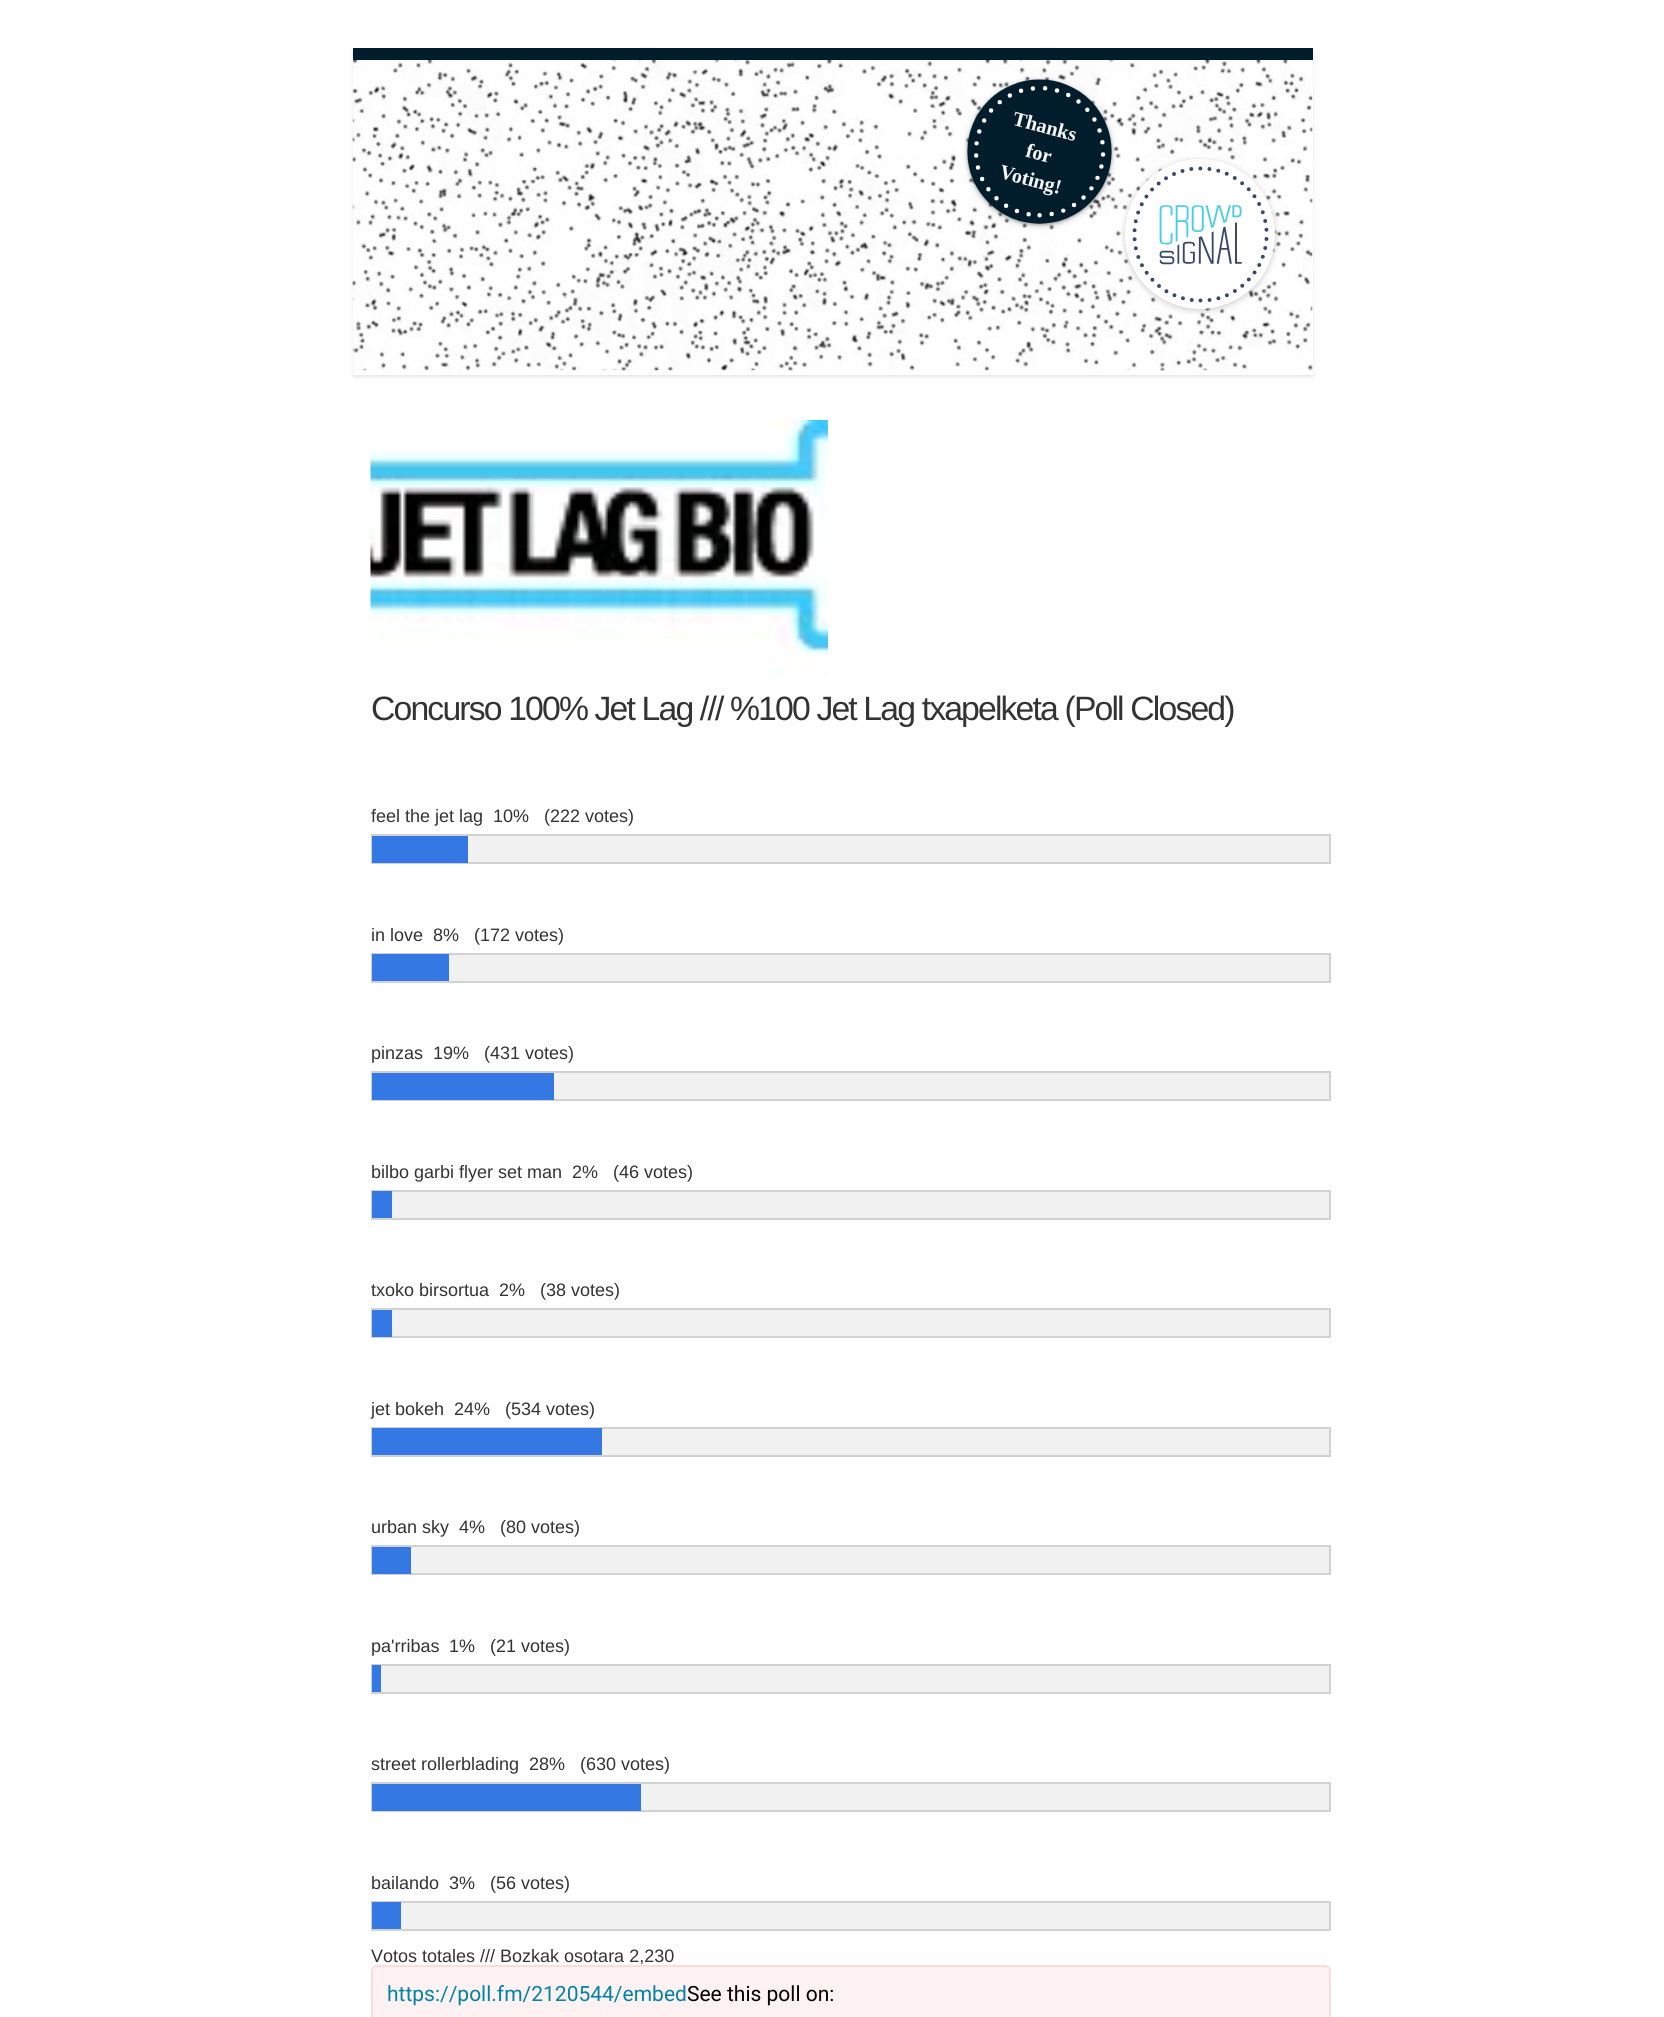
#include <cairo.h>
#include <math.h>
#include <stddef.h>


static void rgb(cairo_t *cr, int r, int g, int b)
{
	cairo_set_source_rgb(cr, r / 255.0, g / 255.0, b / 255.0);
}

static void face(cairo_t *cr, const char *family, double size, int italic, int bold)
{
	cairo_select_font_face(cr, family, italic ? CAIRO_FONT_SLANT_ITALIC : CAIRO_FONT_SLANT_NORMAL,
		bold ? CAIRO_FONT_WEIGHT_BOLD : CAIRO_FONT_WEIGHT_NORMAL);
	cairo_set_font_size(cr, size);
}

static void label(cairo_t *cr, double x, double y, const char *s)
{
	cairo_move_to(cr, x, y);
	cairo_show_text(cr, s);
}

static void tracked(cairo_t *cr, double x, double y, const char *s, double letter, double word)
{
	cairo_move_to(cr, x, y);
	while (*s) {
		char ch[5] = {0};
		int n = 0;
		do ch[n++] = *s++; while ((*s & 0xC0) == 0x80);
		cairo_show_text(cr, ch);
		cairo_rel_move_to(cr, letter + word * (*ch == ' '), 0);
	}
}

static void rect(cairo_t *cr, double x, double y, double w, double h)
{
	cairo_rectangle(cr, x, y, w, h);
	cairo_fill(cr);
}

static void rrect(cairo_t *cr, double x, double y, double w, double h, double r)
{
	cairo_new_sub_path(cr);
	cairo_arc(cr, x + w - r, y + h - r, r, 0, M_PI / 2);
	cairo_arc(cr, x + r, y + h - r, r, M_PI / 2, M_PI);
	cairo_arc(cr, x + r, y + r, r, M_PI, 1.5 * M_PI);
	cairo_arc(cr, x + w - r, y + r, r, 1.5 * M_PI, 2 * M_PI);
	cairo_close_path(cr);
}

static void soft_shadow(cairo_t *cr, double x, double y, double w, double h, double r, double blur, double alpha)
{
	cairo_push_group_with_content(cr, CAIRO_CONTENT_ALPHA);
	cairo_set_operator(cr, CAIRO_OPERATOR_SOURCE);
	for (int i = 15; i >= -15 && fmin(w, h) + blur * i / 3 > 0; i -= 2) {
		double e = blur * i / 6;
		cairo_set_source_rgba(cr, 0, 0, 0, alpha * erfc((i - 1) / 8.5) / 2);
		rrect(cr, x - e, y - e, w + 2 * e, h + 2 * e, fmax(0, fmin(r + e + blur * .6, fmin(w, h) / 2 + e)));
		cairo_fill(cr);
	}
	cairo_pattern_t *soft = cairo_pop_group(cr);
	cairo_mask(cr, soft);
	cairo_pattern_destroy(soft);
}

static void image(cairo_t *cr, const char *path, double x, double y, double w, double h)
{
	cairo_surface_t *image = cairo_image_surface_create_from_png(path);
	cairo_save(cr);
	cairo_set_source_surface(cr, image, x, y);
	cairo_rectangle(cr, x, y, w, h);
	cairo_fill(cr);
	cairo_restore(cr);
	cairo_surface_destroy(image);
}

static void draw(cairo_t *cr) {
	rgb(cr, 255, 255, 255);
	cairo_paint(cr);
	cairo_save(cr);
	cairo_set_fill_rule(cr, CAIRO_FILL_RULE_EVEN_ODD);
	cairo_new_path(cr);
	cairo_move_to(cr, 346, 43);
	cairo_line_to(cr, 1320, 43);
	cairo_line_to(cr, 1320, 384);
	cairo_line_to(cr, 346, 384);
	cairo_close_path(cr);
	cairo_move_to(cr, 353, 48);
	cairo_line_to(cr, 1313, 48);
	cairo_line_to(cr, 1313, 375);
	cairo_line_to(cr, 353, 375);
	cairo_close_path(cr);
	cairo_clip(cr);
	rgb(cr, 0, 0, 0);
	soft_shadow(cr, 353, 50, 960, 327, 0, 2, 0.1);
	cairo_restore(cr);
	rgb(cr, 1, 29, 44);
	rect(cr, 353, 48, 960, 12);
	image(cr, "image0.png", 352, 60, 961, 311);
	image(cr, "image1.png", 963, 77, 153, 153);
	image(cr, "image2.png", 1121, 157, 158, 157);
	image(cr, "image3.png", 370, 420, 458, 258);
	face(cr, "Liberation Sans", 33.75, 0, 0);
	rgb(cr, 51, 51, 51);
	tracked(cr, 371, 720, "Concurso 100% Jet Lag /// %100 Jet Lag txapelketa (Poll Closed)", -1.85, 0);
	face(cr, "Liberation Sans", 18, 0, 0);
	label(cr, 371, 822, "feel the jet lag");
	label(cr, 493, 822, "10%");
	label(cr, 544, 822, "(222 votes)");
	rgb(cr, 241, 241, 241);
	rect(cr, 468, 836, 861, 26);
	cairo_rectangle(cr, 372, 835, 958, 28);
	rgb(cr, 209, 209, 209);
	cairo_stroke(cr);
	rgb(cr, 52, 120, 227);
	rect(cr, 372, 836, 96, 27);
	rgb(cr, 51, 51, 51);
	label(cr, 371, 941, "in love");
	label(cr, 433, 941, "8%");
	label(cr, 474, 941, "(172 votes)");
	rgb(cr, 241, 241, 241);
	rect(cr, 449, 955, 880, 26);
	cairo_rectangle(cr, 372, 954, 958, 28);
	rgb(cr, 209, 209, 209);
	cairo_stroke(cr);
	rgb(cr, 52, 120, 227);
	rect(cr, 372, 954, 77, 27);
	rgb(cr, 51, 51, 51);
	label(cr, 371, 1059, "pinzas");
	label(cr, 433, 1059, "19%");
	label(cr, 484, 1059, "(431 votes)");
	rgb(cr, 241, 241, 241);
	rect(cr, 554, 1073, 775, 26);
	cairo_rectangle(cr, 372, 1072, 958, 28);
	rgb(cr, 209, 209, 209);
	cairo_stroke(cr);
	rgb(cr, 52, 120, 227);
	rect(cr, 372, 1073, 182, 27);
	rgb(cr, 51, 51, 51);
	label(cr, 371, 1178, "bilbo garbi flyer set man");
	label(cr, 572, 1178, "2%");
	label(cr, 613, 1178, "(46 votes)");
	rgb(cr, 241, 241, 241);
	rect(cr, 392, 1192, 937, 26);
	cairo_rectangle(cr, 372, 1191, 958, 28);
	rgb(cr, 209, 209, 209);
	cairo_stroke(cr);
	rgb(cr, 52, 120, 227);
	rect(cr, 372, 1191, 20, 27);
	rgb(cr, 51, 51, 51);
	label(cr, 371, 1296, "txoko birsortua");
	label(cr, 499, 1296, "2%");
	label(cr, 540, 1296, "(38 votes)");
	rgb(cr, 241, 241, 241);
	rect(cr, 392, 1310, 937, 26);
	cairo_rectangle(cr, 372, 1309, 958, 28);
	rgb(cr, 209, 209, 209);
	cairo_stroke(cr);
	rgb(cr, 52, 120, 227);
	rect(cr, 372, 1310, 20, 27);
	rgb(cr, 51, 51, 51);
	label(cr, 371, 1415, "jet bokeh");
	label(cr, 454, 1415, "24%");
	label(cr, 505, 1415, "(534 votes)");
	rgb(cr, 241, 241, 241);
	rect(cr, 602, 1429, 727, 26);
	cairo_rectangle(cr, 372, 1428, 958, 28);
	rgb(cr, 209, 209, 209);
	cairo_stroke(cr);
	rgb(cr, 52, 120, 227);
	rect(cr, 372, 1428, 230, 27);
	rgb(cr, 51, 51, 51);
	label(cr, 371, 1533, "urban sky");
	label(cr, 459, 1533, "4%");
	label(cr, 500, 1533, "(80 votes)");
	rgb(cr, 241, 241, 241);
	rect(cr, 411, 1547, 918, 26);
	cairo_rectangle(cr, 372, 1546, 958, 28);
	rgb(cr, 209, 209, 209);
	cairo_stroke(cr);
	rgb(cr, 52, 120, 227);
	rect(cr, 372, 1547, 39, 27);
	rgb(cr, 51, 51, 51);
	label(cr, 371, 1652, "pa'rribas");
	label(cr, 449, 1652, "1%");
	label(cr, 490, 1652, "(21 votes)");
	rgb(cr, 241, 241, 241);
	rect(cr, 381, 1666, 948, 26);
	cairo_rectangle(cr, 372, 1665, 958, 28);
	rgb(cr, 209, 209, 209);
	cairo_stroke(cr);
	rgb(cr, 52, 120, 227);
	rect(cr, 372, 1665, 9, 27);
	rgb(cr, 51, 51, 51);
	label(cr, 371, 1770, "street rollerblading");
	label(cr, 529, 1770, "28%");
	label(cr, 580, 1770, "(630 votes)");
	rgb(cr, 241, 241, 241);
	rect(cr, 641, 1784, 688, 26);
	cairo_rectangle(cr, 372, 1783, 958, 28);
	rgb(cr, 209, 209, 209);
	cairo_stroke(cr);
	rgb(cr, 52, 120, 227);
	rect(cr, 372, 1784, 269, 27);
	rgb(cr, 51, 51, 51);
	label(cr, 371, 1889, "bailando");
	label(cr, 449, 1889, "3%");
	label(cr, 490, 1889, "(56 votes)");
	rgb(cr, 241, 241, 241);
	rect(cr, 401, 1903, 928, 26);
	cairo_rectangle(cr, 372, 1902, 958, 28);
	rgb(cr, 209, 209, 209);
	cairo_stroke(cr);
	rgb(cr, 52, 120, 227);
	rect(cr, 372, 1902, 29, 27);
	rgb(cr, 51, 51, 51);
	label(cr, 371, 1962, "Votos totales /// Bozkak osotara 2,230");
	rgb(cr, 255, 242, 242);
	rrect(cr, 372, 1966, 958, 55, 5);
	cairo_fill_preserve(cr);
	rgb(cr, 255, 220, 220);
	cairo_stroke(cr);
	face(cr, "Roboto", 21, 0, 0);
	rgb(cr, 1, 130, 168);
	label(cr, 387, 2001, "https://poll.fm/2120544/embed");
	rgb(cr, 0, 0, 0);
	label(cr, 687, 2001, "See this poll on:");
}

int main(void) {
	cairo_surface_t *surface = cairo_image_surface_create(CAIRO_FORMAT_RGB24, 1664, 2017);
	cairo_t *cr = cairo_create(surface);
	cairo_font_options_t *options = cairo_font_options_create();
	cairo_font_options_set_hint_metrics(options, CAIRO_HINT_METRICS_OFF);
	cairo_font_options_set_hint_style(options, CAIRO_HINT_STYLE_NONE);
	cairo_set_font_options(cr, options);
	cairo_set_miter_limit(cr, 4);
	draw(cr);
	cairo_surface_write_to_png(surface, "render.png");
	cairo_font_options_destroy(options);
	cairo_destroy(cr);
	cairo_surface_destroy(surface);
	return 0;
}
